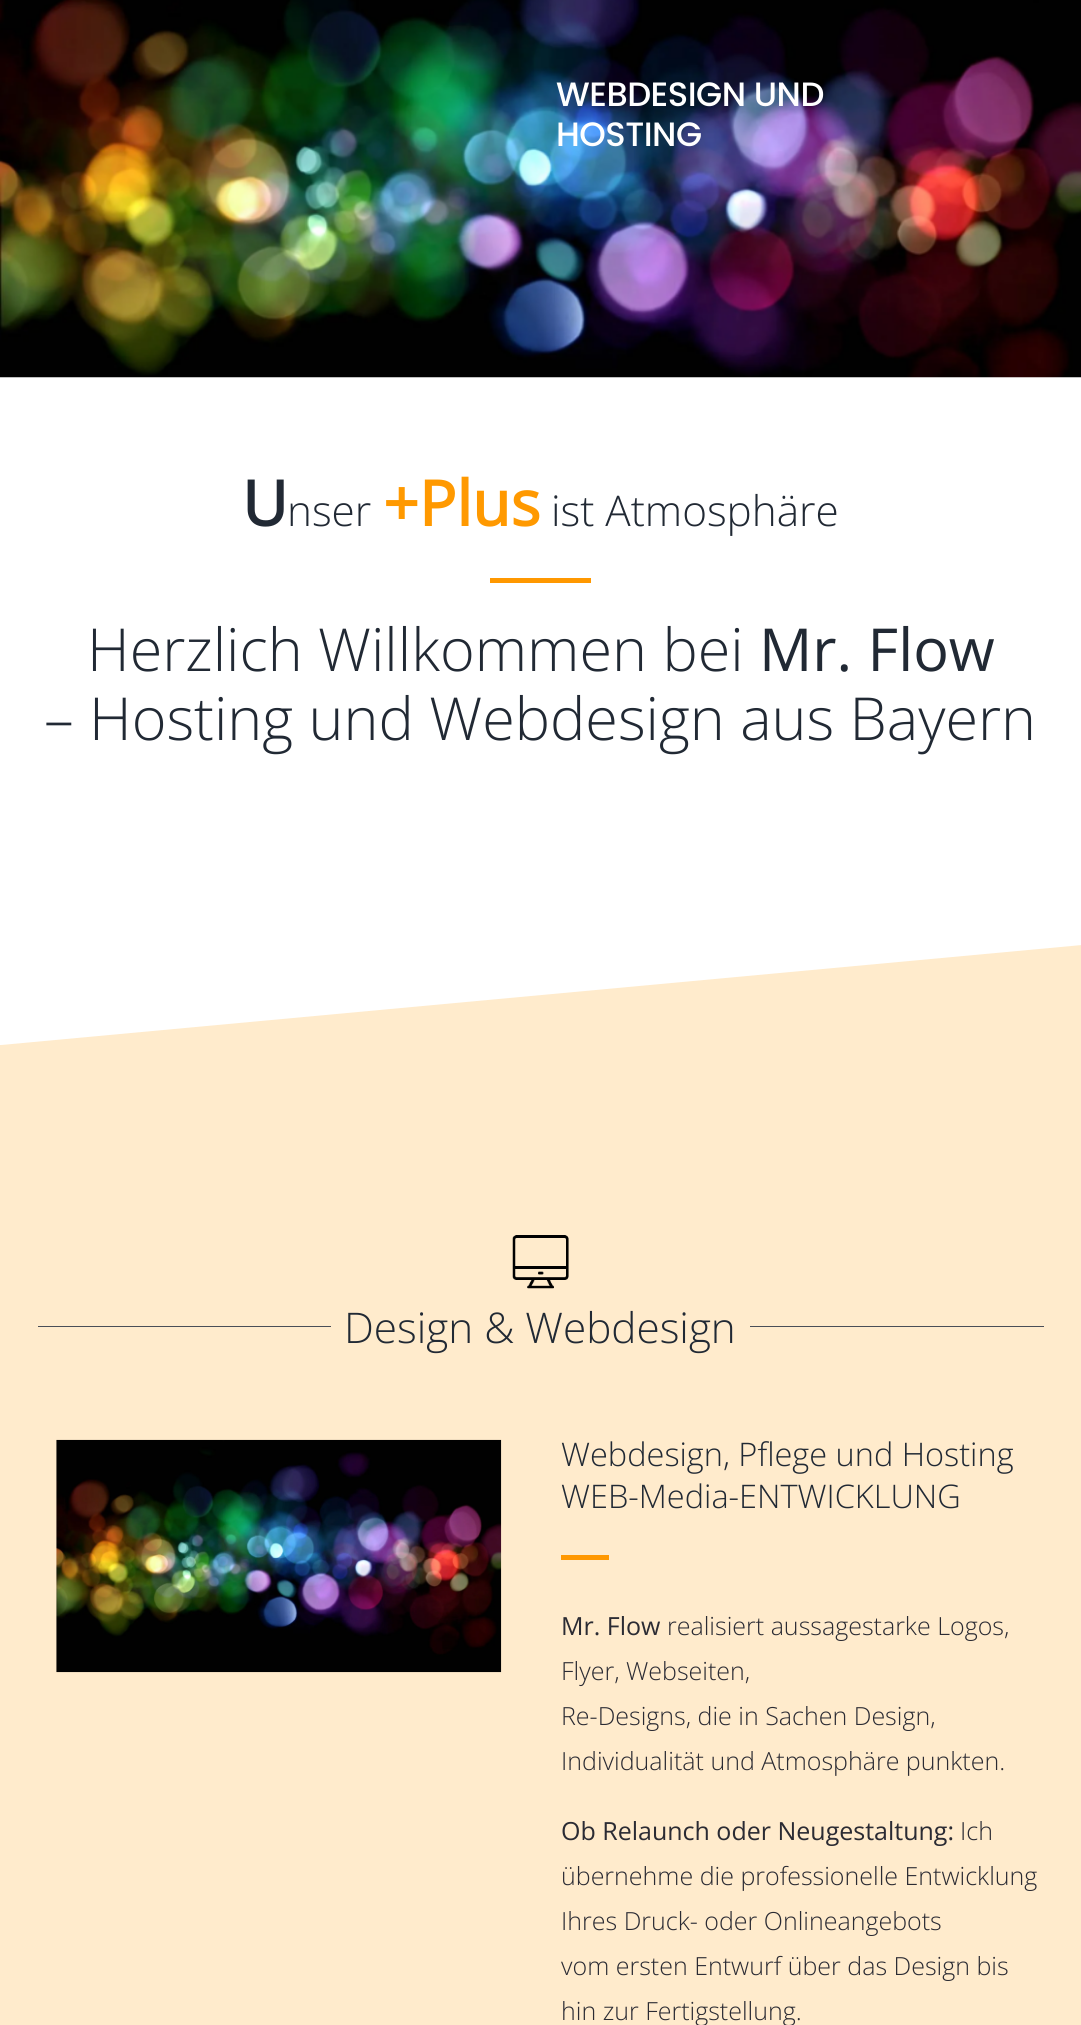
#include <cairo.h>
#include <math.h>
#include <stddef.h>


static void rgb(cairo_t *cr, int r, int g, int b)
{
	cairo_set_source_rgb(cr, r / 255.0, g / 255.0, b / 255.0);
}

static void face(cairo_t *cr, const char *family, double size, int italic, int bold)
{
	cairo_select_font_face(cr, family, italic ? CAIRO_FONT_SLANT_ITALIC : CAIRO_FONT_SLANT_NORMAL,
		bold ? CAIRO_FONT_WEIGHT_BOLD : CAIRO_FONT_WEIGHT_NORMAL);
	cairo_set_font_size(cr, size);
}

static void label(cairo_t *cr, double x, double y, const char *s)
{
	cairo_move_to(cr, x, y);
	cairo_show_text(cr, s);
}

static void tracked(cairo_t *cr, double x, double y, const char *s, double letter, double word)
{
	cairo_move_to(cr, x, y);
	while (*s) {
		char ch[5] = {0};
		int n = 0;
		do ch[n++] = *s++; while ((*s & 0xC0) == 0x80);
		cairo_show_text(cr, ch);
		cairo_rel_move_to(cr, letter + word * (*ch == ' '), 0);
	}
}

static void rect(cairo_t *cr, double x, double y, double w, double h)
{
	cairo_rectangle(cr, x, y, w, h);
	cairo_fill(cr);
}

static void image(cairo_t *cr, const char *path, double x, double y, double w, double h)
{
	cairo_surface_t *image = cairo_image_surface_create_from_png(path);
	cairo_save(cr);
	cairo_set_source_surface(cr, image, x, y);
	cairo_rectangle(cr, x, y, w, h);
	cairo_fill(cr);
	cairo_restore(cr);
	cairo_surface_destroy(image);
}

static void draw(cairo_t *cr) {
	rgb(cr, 255, 255, 255);
	cairo_paint(cr);
	image(cr, "image0.png", 0, 0, 1081, 378);
	face(cr, "Poppins Medium", 33.75, 0, 0);
	rgb(cr, 255, 255, 255);
	tracked(cr, 556, 106, "WEBDESIGN UND", -0.5, 0);
	tracked(cr, 556, 146, "HOSTING", -0.5, 0);
	face(cr, "Open Sans", 62.5, 0, 1);
	rgb(cr, 33, 41, 52);
	label(cr, 242, 526, "U");
	face(cr, "Open Sans Light", 42.25, 0, 0);
	label(cr, 287, 526, "nser");
	face(cr, "Open Sans", 62.5, 0, 1);
	rgb(cr, 255, 153, 0);
	label(cr, 383, 526, "+Plus");
	face(cr, "Open Sans Light", 42.25, 0, 0);
	rgb(cr, 33, 41, 52);
	label(cr, 551, 526, "ist Atmosphäre");
	rgb(cr, 255, 152, 0);
	rect(cr, 490, 578, 101, 5);
	face(cr, "Open Sans Light", 59.3, 0, 0);
	rgb(cr, 33, 41, 52);
	label(cr, 87, 671, "Herzlich Willkommen bei");
	face(cr, "Open Sans", 59.3, 0, 0);
	label(cr, 759, 671, "Mr. Flow");
	face(cr, "Open Sans Light", 59.3, 0, 0);
	label(cr, 44, 740, "– Hosting und Webdesign aus Bayern");
	rgb(cr, 255, 235, 204);
	cairo_new_path(cr);
	cairo_move_to(cr, 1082, 945);
	cairo_line_to(cr, 1, 1045);
	cairo_line_to(cr, 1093, 1045);
	cairo_close_path(cr);
	cairo_fill(cr);
	rect(cr, 0, 1045, 1081, 980);
	image(cr, "image1.png", 512, 1235, 57, 54);
	rgb(cr, 74, 78, 87);
	rect(cr, 38, 1326, 293, 1);
	face(cr, "Open Sans Light", 42.25, 0, 0);
	rgb(cr, 33, 41, 52);
	label(cr, 344, 1343, "Design & Webdesign");
	rgb(cr, 74, 78, 87);
	rect(cr, 750, 1326, 294, 1);
	image(cr, "image2.png", 56, 1439, 446, 234);
	face(cr, "Open Sans Light", 32.5, 0, 0);
	rgb(cr, 33, 41, 52);
	label(cr, 561, 1466, "Webdesign, Pflege und Hosting");
	label(cr, 561, 1508, "WEB-Media-ENTWICKLUNG");
	rgb(cr, 255, 152, 0);
	rect(cr, 561, 1555, 48, 5);
	face(cr, "Open Sans", 25, 0, 0);
	rgb(cr, 43, 43, 51);
	label(cr, 561, 1635, "Mr. Flow");
	face(cr, "Open Sans Light", 25, 0, 0);
	label(cr, 667, 1635, "realisiert aussagestarke Logos,");
	label(cr, 561, 1680, "Flyer, Webseiten,");
	label(cr, 561, 1725, "Re-Designs, die in Sachen Design,");
	label(cr, 561, 1770, "Individualität und Atmosphäre punkten.");
	face(cr, "Open Sans", 25, 0, 0);
	label(cr, 561, 1840, "Ob Relaunch oder Neugestaltung:");
	face(cr, "Open Sans Light", 25, 0, 0);
	label(cr, 960, 1840, "Ich");
	label(cr, 561, 1885, "übernehme die professionelle Entwicklung");
	label(cr, 561, 1930, "Ihres Druck- oder Onlineangebots");
	label(cr, 561, 1975, "vom ersten Entwurf über das Design bis");
	label(cr, 561, 2020, "hin zur Fertigstellung.");
}

int main(void) {
	cairo_surface_t *surface = cairo_image_surface_create(CAIRO_FORMAT_RGB24, 1081, 2025);
	cairo_t *cr = cairo_create(surface);
	cairo_font_options_t *options = cairo_font_options_create();
	cairo_font_options_set_hint_metrics(options, CAIRO_HINT_METRICS_OFF);
	cairo_font_options_set_hint_style(options, CAIRO_HINT_STYLE_NONE);
	cairo_set_font_options(cr, options);
	cairo_set_miter_limit(cr, 4);
	draw(cr);
	cairo_surface_write_to_png(surface, "render.png");
	cairo_font_options_destroy(options);
	cairo_destroy(cr);
	cairo_surface_destroy(surface);
	return 0;
}
